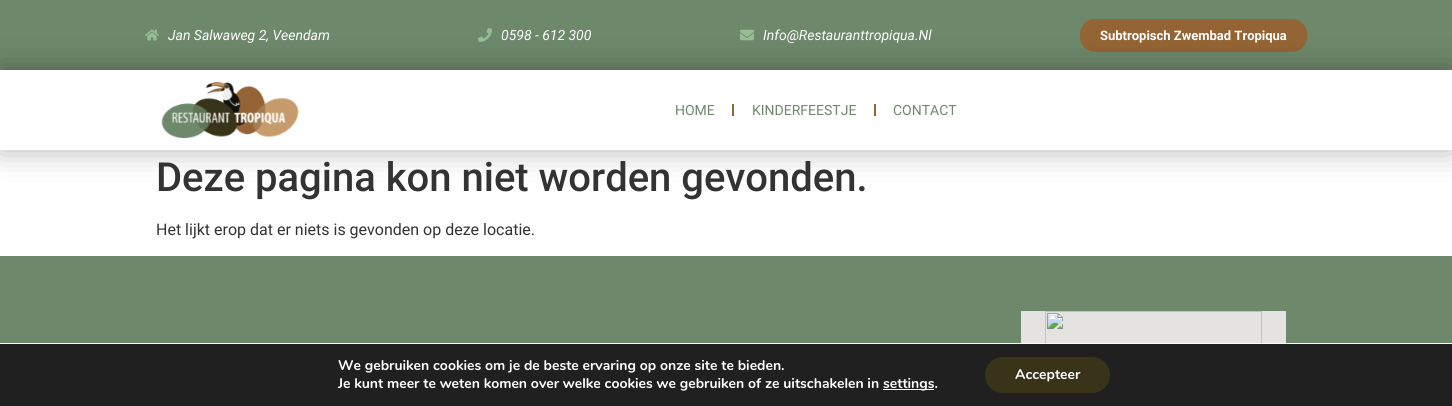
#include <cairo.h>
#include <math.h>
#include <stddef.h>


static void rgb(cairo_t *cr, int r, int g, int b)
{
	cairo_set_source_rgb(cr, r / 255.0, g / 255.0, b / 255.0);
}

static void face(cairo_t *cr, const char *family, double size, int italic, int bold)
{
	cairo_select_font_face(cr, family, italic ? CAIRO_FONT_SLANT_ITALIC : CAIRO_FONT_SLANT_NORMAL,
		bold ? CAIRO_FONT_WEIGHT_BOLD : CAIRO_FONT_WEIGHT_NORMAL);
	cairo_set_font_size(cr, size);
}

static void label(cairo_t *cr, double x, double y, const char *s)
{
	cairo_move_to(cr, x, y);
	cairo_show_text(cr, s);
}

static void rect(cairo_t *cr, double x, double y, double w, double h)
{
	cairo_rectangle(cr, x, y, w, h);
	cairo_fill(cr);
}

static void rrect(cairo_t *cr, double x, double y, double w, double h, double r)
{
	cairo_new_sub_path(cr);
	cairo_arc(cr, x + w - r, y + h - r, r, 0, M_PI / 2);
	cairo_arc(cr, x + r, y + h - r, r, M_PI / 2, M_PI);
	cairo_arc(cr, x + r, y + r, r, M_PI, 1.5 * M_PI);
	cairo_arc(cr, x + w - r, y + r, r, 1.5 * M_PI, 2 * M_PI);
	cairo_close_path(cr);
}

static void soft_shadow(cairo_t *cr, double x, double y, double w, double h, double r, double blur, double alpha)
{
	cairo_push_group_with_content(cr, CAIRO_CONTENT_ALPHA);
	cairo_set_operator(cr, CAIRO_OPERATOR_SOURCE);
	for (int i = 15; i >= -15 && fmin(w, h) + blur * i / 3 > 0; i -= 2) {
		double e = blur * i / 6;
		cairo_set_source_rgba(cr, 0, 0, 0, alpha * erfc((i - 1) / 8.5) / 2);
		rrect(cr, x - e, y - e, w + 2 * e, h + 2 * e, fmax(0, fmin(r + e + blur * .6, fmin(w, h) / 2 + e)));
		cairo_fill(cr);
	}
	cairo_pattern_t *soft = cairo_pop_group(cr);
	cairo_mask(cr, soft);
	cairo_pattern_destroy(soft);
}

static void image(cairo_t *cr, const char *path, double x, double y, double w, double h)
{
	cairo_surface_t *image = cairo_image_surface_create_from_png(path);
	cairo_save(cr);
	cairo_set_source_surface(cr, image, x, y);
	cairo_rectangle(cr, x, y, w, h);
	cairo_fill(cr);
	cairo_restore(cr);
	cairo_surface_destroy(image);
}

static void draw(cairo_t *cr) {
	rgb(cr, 255, 255, 255);
	cairo_paint(cr);
	rgb(cr, 109, 136, 107);
	rect(cr, 0, 0, 1452, 70);
	image(cr, "image0.png", 145, 29, 14, 12);
	face(cr, "Roboto", 14, 1, 0);
	rgb(cr, 255, 255, 255);
	label(cr, 168, 40, "Jan Salwaweg 2, Veendam");
	image(cr, "image1.png", 478, 28, 14, 14);
	label(cr, 501, 40, "0598 - 612 300");
	image(cr, "image2.png", 740, 29, 14, 12);
	label(cr, 763, 40, "Info@Restauranttropiqua.Nl");
	rgb(cr, 148, 100, 52);
	rrect(cr, 1080, 19, 227, 33, 15);
	cairo_fill(cr);
	face(cr, "Roboto", 13, 0, 1);
	rgb(cr, 255, 255, 255);
	label(cr, 1100, 40, "Subtropisch Zwembad Tropiqua");
	rgb(cr, 0, 0, 0);
	soft_shadow(cr, 0, 70, 1452, 80, 0, 15, 0.3);
	rgb(cr, 255, 255, 255);
	rect(cr, 0, 70, 1452, 80);
	image(cr, "image3.png", 161, 82, 138, 56);
	face(cr, "Roboto", 14, 0, 0);
	rgb(cr, 109, 136, 107);
	label(cr, 675, 115, "HOME");
	rgb(cr, 148, 100, 52);
	rect(cr, 732, 104, 2, 12);
	rgb(cr, 109, 136, 107);
	label(cr, 752, 115, "KINDERFEESTJE");
	rgb(cr, 148, 100, 52);
	rect(cr, 874, 104, 2, 12);
	rgb(cr, 109, 136, 107);
	label(cr, 893, 115, "CONTACT");
	face(cr, "Roboto Medium", 40, 0, 0);
	rgb(cr, 51, 51, 51);
	label(cr, 156, 191, "Deze pagina kon niet worden gevonden.");
	face(cr, "Roboto", 16, 0, 0);
	label(cr, 156, 235, "Het lijkt erop dat er niets is gevonden op deze locatie.");
	rgb(cr, 109, 136, 107);
	rect(cr, 0, 256, 1452, 87);
	image(cr, "image4.png", 1021, 311, 265, 32);
	rgb(cr, 32, 32, 32);
	rect(cr, 0, 344, 1452, 62);
	face(cr, "Nunito", 14, 0, 1);
	rgb(cr, 255, 255, 255);
	label(cr, 338, 370, "We gebruiken cookies om je de beste ervaring op onze site te bieden.");
	label(cr, 338, 388, "Je kunt meer te weten komen over welke cookies we gebruiken of ze uitschakelen in");
	rect(cr, 883, 389, 51, 1);
	label(cr, 883, 388, "settings.");
	rgb(cr, 57, 52, 25);
	rrect(cr, 985, 357, 125, 36, 18);
	cairo_fill(cr);
	rgb(cr, 255, 255, 255);
	label(cr, 1015, 379, "Accepteer");
}

int main(void) {
	cairo_surface_t *surface = cairo_image_surface_create(CAIRO_FORMAT_RGB24, 1452, 406);
	cairo_t *cr = cairo_create(surface);
	cairo_font_options_t *options = cairo_font_options_create();
	cairo_font_options_set_hint_metrics(options, CAIRO_HINT_METRICS_OFF);
	cairo_font_options_set_hint_style(options, CAIRO_HINT_STYLE_NONE);
	cairo_set_font_options(cr, options);
	cairo_set_miter_limit(cr, 4);
	draw(cr);
	cairo_surface_write_to_png(surface, "render.png");
	cairo_font_options_destroy(options);
	cairo_destroy(cr);
	cairo_surface_destroy(surface);
	return 0;
}
